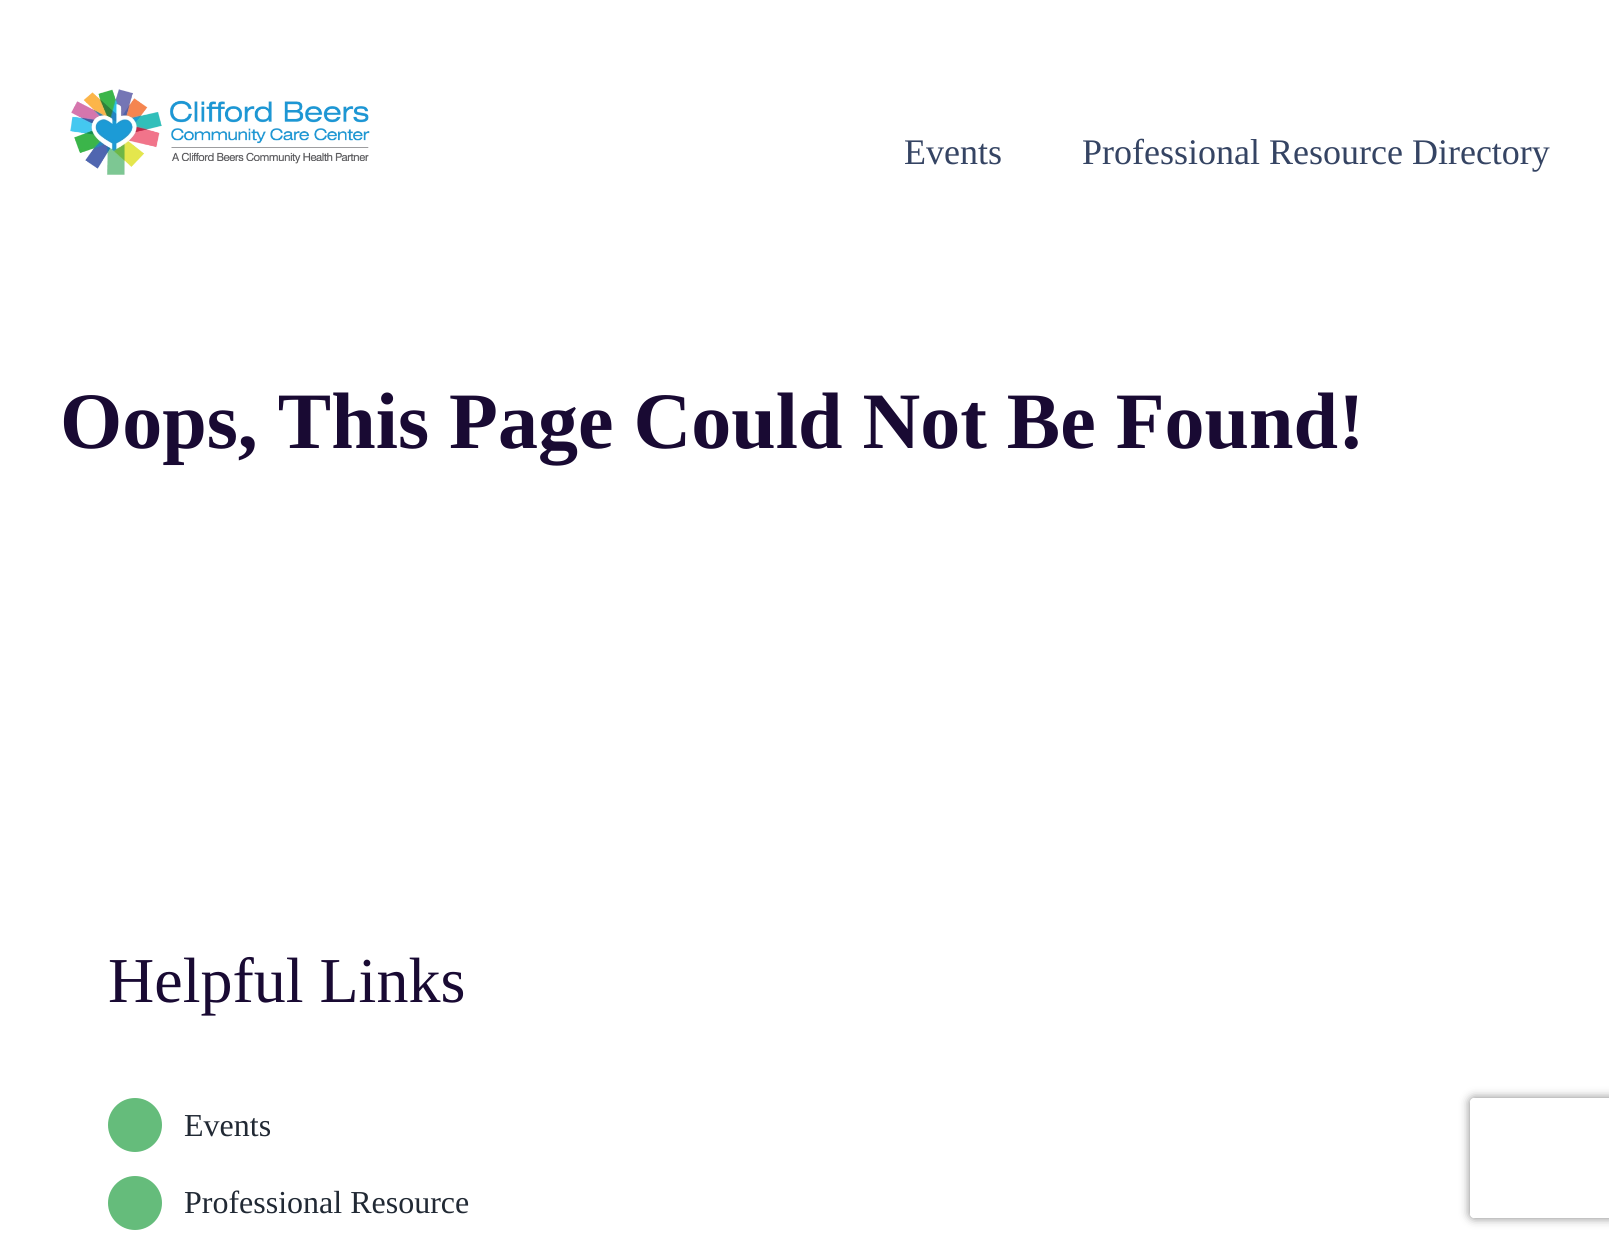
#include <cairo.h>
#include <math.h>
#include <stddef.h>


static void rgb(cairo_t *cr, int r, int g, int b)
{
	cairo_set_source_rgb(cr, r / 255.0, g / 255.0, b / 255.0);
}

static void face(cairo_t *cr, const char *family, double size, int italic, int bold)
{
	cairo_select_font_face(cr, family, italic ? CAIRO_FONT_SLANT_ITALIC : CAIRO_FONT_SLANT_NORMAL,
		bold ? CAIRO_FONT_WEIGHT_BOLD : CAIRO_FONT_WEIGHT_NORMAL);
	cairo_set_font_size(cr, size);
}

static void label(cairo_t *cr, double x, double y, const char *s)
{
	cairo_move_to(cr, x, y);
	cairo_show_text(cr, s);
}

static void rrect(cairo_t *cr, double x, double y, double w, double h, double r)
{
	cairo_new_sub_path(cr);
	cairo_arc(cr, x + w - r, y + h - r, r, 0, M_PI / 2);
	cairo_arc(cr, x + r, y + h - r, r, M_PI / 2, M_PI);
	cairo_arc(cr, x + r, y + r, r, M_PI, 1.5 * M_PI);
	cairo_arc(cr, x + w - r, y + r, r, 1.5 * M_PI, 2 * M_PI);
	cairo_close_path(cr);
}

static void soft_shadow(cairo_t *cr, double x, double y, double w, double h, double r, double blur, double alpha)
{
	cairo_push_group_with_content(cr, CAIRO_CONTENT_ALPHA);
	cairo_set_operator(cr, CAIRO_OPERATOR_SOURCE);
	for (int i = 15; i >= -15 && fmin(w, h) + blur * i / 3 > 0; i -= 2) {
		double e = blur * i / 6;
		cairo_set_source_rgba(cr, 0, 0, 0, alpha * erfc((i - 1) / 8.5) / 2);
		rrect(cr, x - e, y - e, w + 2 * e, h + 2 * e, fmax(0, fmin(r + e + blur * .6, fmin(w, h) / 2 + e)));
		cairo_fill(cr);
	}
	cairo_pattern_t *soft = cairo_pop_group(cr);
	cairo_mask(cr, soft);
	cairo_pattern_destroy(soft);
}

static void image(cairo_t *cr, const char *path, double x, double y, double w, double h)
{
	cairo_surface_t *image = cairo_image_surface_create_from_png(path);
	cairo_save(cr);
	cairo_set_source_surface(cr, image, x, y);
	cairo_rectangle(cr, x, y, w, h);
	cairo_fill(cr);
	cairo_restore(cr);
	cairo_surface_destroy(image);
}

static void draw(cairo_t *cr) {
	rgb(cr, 255, 255, 255);
	cairo_paint(cr);
	image(cr, "image0.png", 70, 89, 300, 86);
	face(cr, "Liberation Serif", 36, 0, 0);
	rgb(cr, 53, 68, 99);
	label(cr, 904, 164, "Events");
	label(cr, 1082, 164, "Professional Resource Directory");
	face(cr, "Liberation Serif", 80, 0, 1);
	rgb(cr, 25, 10, 51);
	label(cr, 60, 448, "Oops, This Page Could Not Be Found!");
	face(cr, "Liberation Serif", 64, 0, 0);
	label(cr, 108, 1002, "Helpful Links");
	rgb(cr, 101, 188, 123);
	cairo_new_path(cr);
	cairo_arc(cr, 135, 1125, 27, 0, 2 * M_PI);
	cairo_fill(cr);
	face(cr, "Liberation Serif", 32, 0, 0);
	rgb(cr, 33, 41, 52);
	label(cr, 184, 1136, "Events");
	rgb(cr, 101, 188, 123);
	cairo_new_path(cr);
	cairo_arc(cr, 135, 1203, 27, 0, 2 * M_PI);
	cairo_fill(cr);
	rgb(cr, 33, 41, 52);
	label(cr, 184, 1213, "Professional Resource");
	cairo_save(cr);
	cairo_set_fill_rule(cr, CAIRO_FILL_RULE_EVEN_ODD);
	cairo_new_path(cr);
	cairo_move_to(cr, 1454, 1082);
	cairo_line_to(cr, 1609, 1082);
	cairo_line_to(cr, 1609, 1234);
	cairo_line_to(cr, 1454, 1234);
	cairo_close_path(cr);
	cairo_move_to(cr, 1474, 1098);
	cairo_line_to(cr, 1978, 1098);
	cairo_curve_to(cr, 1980, 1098, 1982, 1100, 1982, 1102);
	cairo_line_to(cr, 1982, 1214);
	cairo_curve_to(cr, 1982, 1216, 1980, 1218, 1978, 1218);
	cairo_line_to(cr, 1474, 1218);
	cairo_curve_to(cr, 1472, 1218, 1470, 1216, 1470, 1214);
	cairo_line_to(cr, 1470, 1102);
	cairo_curve_to(cr, 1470, 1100, 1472, 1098, 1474, 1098);
	cairo_close_path(cr);
	cairo_clip(cr);
	rgb(cr, 128, 128, 128);
	soft_shadow(cr, 1470, 1098, 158, 120, 4, 5, 1);
	cairo_restore(cr);
}

int main(void) {
	cairo_surface_t *surface = cairo_image_surface_create(CAIRO_FORMAT_RGB24, 1609, 1245);
	cairo_t *cr = cairo_create(surface);
	cairo_font_options_t *options = cairo_font_options_create();
	cairo_font_options_set_hint_metrics(options, CAIRO_HINT_METRICS_OFF);
	cairo_font_options_set_hint_style(options, CAIRO_HINT_STYLE_NONE);
	cairo_set_font_options(cr, options);
	cairo_set_miter_limit(cr, 4);
	draw(cr);
	cairo_surface_write_to_png(surface, "render.png");
	cairo_font_options_destroy(options);
	cairo_destroy(cr);
	cairo_surface_destroy(surface);
	return 0;
}
